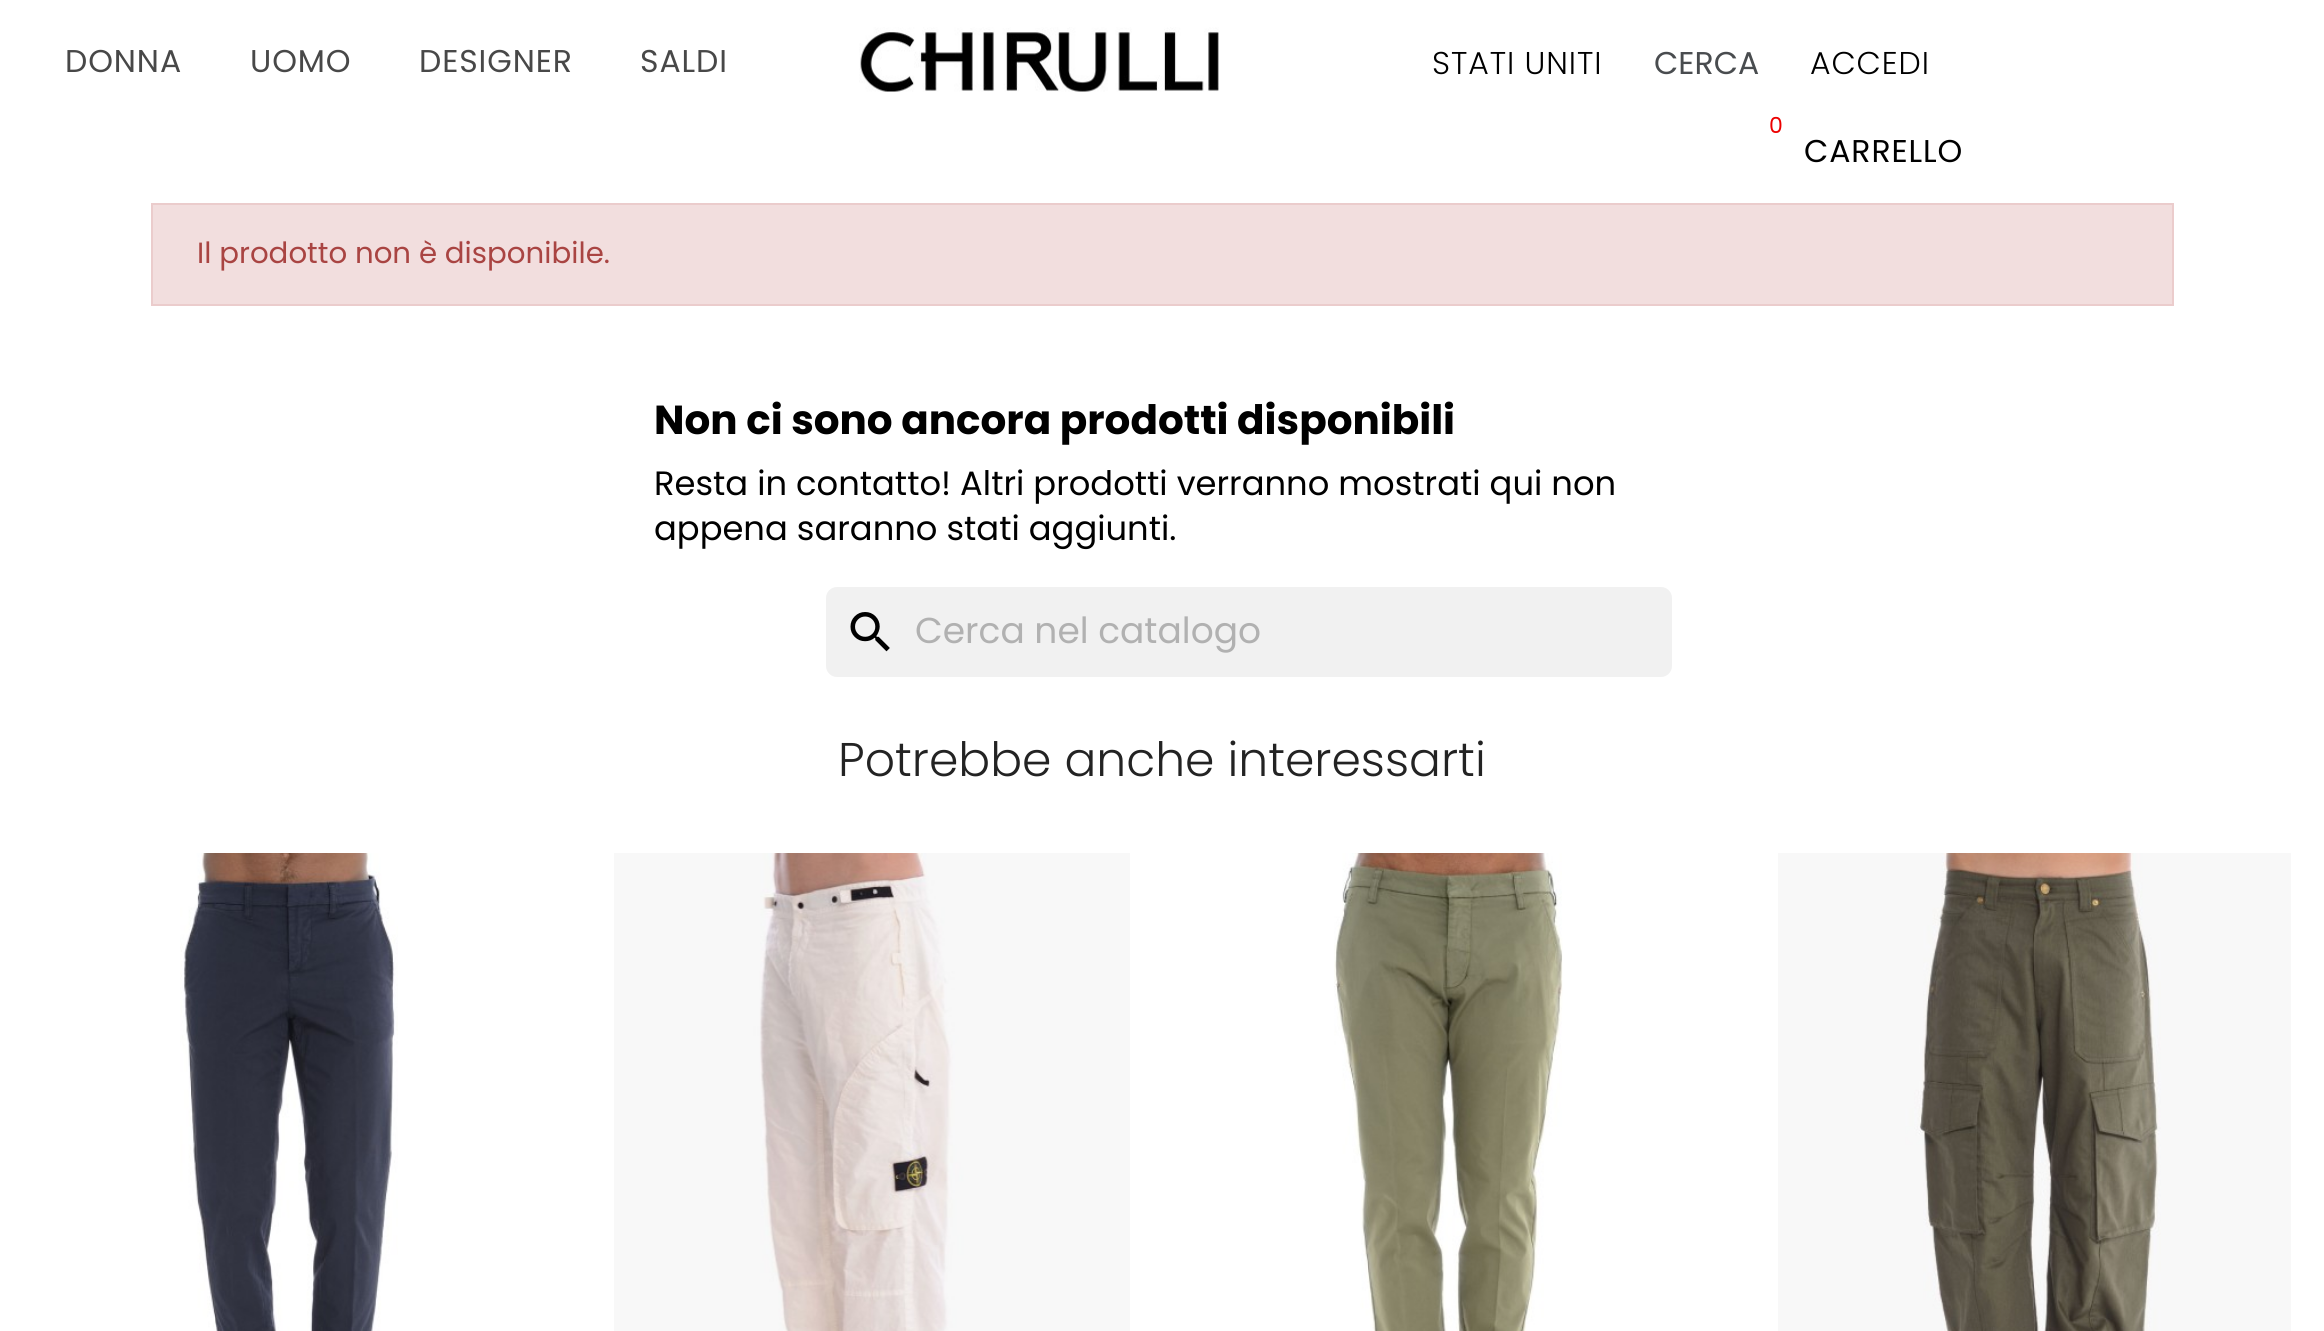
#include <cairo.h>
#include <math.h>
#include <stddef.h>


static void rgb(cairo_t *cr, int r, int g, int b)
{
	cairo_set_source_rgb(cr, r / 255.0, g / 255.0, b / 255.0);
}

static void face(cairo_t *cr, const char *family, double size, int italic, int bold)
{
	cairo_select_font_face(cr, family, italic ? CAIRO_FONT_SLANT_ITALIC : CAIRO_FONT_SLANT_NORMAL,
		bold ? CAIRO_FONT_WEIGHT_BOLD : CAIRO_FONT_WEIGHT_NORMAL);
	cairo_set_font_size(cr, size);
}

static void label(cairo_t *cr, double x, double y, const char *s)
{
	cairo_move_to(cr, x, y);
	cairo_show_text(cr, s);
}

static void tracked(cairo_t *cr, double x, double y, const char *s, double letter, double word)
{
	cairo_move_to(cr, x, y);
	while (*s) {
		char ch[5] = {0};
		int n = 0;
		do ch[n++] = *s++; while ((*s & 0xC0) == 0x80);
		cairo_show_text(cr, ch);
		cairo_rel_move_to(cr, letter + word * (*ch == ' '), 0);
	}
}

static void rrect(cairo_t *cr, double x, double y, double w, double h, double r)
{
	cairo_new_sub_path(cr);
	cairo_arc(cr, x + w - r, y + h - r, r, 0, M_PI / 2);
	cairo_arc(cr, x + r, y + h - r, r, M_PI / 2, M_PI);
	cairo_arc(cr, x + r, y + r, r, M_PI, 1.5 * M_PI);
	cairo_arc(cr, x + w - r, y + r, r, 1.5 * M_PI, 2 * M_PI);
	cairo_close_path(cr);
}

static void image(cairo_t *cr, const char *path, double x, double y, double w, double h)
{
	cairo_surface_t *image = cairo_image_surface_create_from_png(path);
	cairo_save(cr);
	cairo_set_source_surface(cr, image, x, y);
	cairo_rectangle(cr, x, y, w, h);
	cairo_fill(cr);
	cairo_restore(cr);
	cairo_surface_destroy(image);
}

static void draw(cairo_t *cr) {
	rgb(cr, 255, 255, 255);
	cairo_paint(cr);
	face(cr, "Poppins", 31.5, 0, 0);
	rgb(cr, 72, 72, 72);
	tracked(cr, 65, 72, "DONNA", 0.9, 0);
	tracked(cr, 250, 72, "UOMO", 0.9, 0);
	tracked(cr, 419, 72, "DESIGNER", 0.9, 0);
	tracked(cr, 640, 72, "SALDI", 0.9, 0);
	image(cr, "image0.png", 859, 27, 360, 65);
	face(cr, "Poppins Light", 31.5, 0, 0);
	rgb(cr, 0, 0, 0);
	tracked(cr, 1432, 74, "STATI UNITI", 0.9, 0);
	face(cr, "Poppins", 31.5, 0, 0);
	rgb(cr, 73, 76, 79);
	label(cr, 1654, 74, "CERCA");
	face(cr, "Poppins Light", 31.5, 0, 0);
	rgb(cr, 0, 0, 0);
	tracked(cr, 1810, 74, "ACCEDI", 0.9, 0);
	face(cr, "Poppins", 22, 0, 0);
	rgb(cr, 236, 0, 0);
	tracked(cr, 1769, 133, "0", 0.9, 0);
	face(cr, "Poppins", 31.5, 0, 0);
	rgb(cr, 0, 0, 0);
	tracked(cr, 1804, 162, "CARRELLO", 0.9, 0);
	rgb(cr, 242, 222, 222);
	cairo_rectangle(cr, 152, 204, 2021, 101);
	cairo_fill_preserve(cr);
	rgb(cr, 235, 204, 204);
	cairo_stroke(cr);
	face(cr, "Poppins", 29.25, 0, 0);
	rgb(cr, 169, 68, 66);
	label(cr, 197, 263, "Il prodotto non è disponibile.");
	face(cr, "Poppins", 40.5, 0, 1);
	rgb(cr, 0, 0, 0);
	label(cr, 654, 434, "Non ci sono ancora prodotti disponibili");
	face(cr, "Poppins", 33.75, 0, 0);
	label(cr, 654, 495, "Resta in contatto! Altri prodotti verranno mostrati qui non");
	label(cr, 654, 540, "appena saranno stati aggiunti.");
	rgb(cr, 241, 241, 241);
	rrect(cr, 826, 587, 846, 90, 11);
	cairo_fill(cr);
	image(cr, "image1.png", 850, 612, 40, 40);
	face(cr, "Poppins", 36, 0, 0);
	rgb(cr, 177, 177, 177);
	label(cr, 915, 643, "Cerca nel catalogo");
	face(cr, "Poppins Light", 47.25, 0, 0);
	rgb(cr, 35, 35, 35);
	label(cr, 838, 776, "Potrebbe anche interessarti");
	image(cr, "image2.png", 180, 853, 218, 478);
	image(cr, "image3.png", 614, 853, 516, 478);
	image(cr, "image4.png", 1334, 853, 229, 478);
	image(cr, "image5.png", 1778, 853, 513, 478);
}

int main(void) {
	cairo_surface_t *surface = cairo_image_surface_create(CAIRO_FORMAT_RGB24, 2324, 1331);
	cairo_t *cr = cairo_create(surface);
	cairo_font_options_t *options = cairo_font_options_create();
	cairo_font_options_set_hint_metrics(options, CAIRO_HINT_METRICS_OFF);
	cairo_font_options_set_hint_style(options, CAIRO_HINT_STYLE_NONE);
	cairo_set_font_options(cr, options);
	cairo_set_miter_limit(cr, 4);
	draw(cr);
	cairo_surface_write_to_png(surface, "render.png");
	cairo_font_options_destroy(options);
	cairo_destroy(cr);
	cairo_surface_destroy(surface);
	return 0;
}
